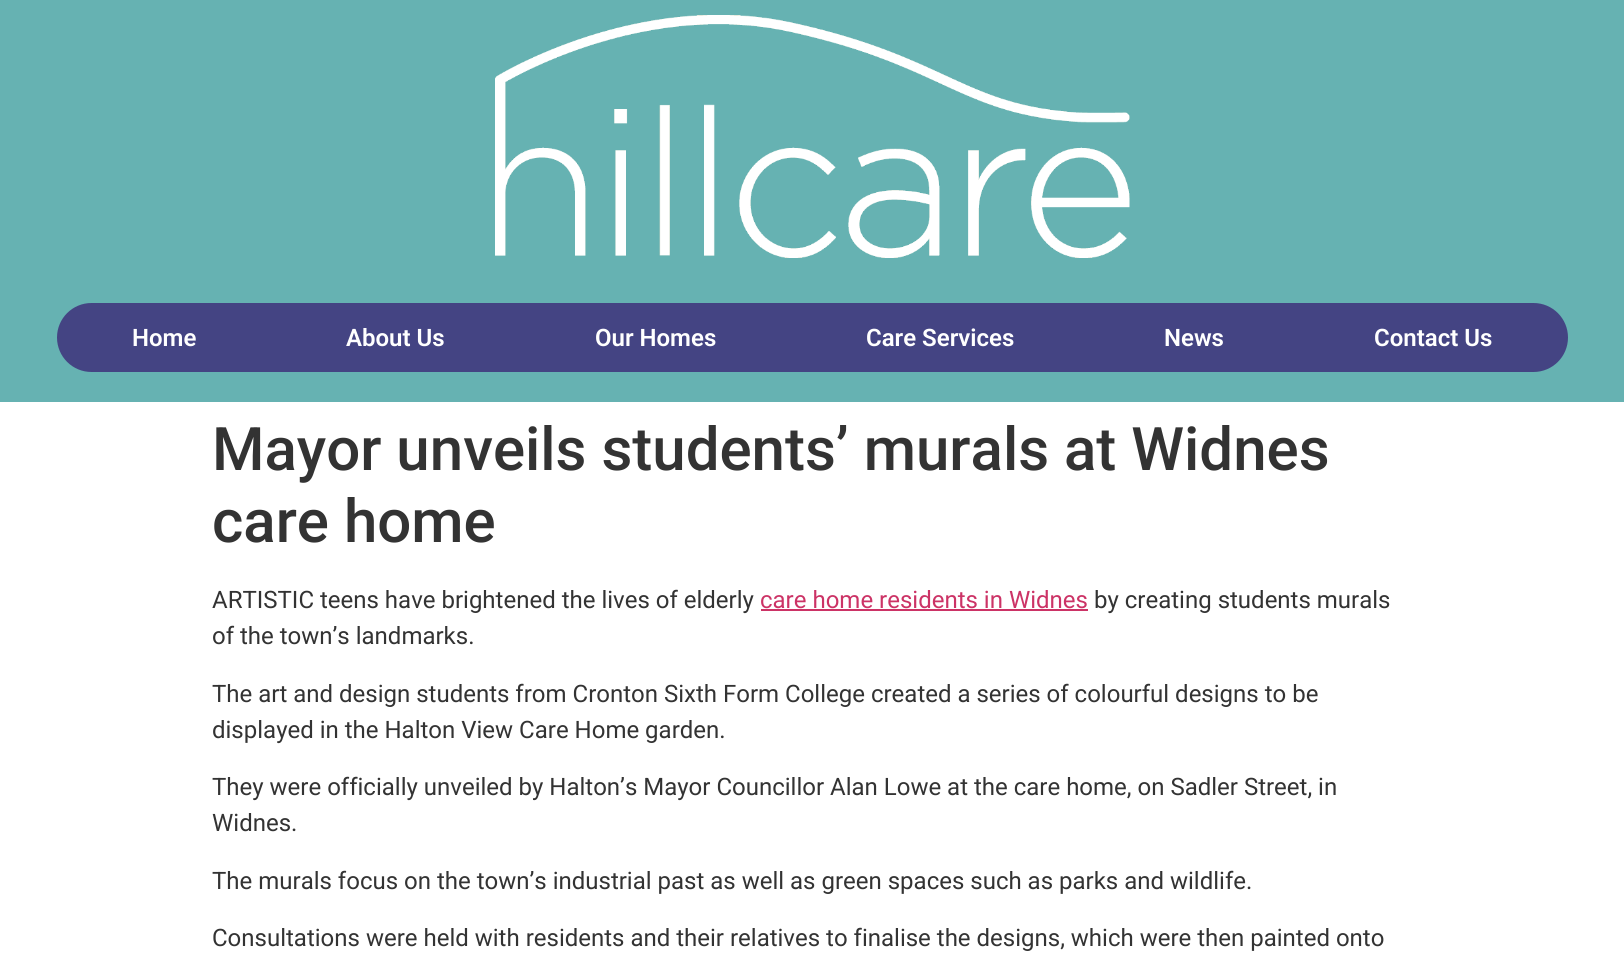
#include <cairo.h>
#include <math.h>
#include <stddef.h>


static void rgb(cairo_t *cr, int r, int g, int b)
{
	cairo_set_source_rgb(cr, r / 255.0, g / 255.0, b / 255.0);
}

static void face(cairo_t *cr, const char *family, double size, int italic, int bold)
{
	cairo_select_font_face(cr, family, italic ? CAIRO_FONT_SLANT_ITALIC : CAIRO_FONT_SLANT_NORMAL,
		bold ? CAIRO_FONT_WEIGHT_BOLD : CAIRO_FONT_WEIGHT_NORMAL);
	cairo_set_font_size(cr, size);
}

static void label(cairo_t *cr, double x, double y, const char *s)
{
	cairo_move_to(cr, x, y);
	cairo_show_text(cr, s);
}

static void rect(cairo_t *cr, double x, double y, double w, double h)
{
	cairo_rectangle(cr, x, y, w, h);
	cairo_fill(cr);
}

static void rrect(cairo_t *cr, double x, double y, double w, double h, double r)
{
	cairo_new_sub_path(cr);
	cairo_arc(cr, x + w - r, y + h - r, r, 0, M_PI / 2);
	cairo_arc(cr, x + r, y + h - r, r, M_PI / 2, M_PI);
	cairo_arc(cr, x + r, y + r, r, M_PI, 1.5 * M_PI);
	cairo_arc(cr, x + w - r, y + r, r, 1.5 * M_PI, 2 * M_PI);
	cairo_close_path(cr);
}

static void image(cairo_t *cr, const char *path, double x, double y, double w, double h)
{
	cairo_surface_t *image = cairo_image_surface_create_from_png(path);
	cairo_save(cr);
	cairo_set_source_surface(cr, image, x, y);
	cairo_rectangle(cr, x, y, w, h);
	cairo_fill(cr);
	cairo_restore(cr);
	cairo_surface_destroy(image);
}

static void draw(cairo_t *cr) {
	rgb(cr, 255, 255, 255);
	cairo_paint(cr);
	rgb(cr, 102, 178, 178);
	rect(cr, 0, 0, 1624, 402);
	image(cr, "image0.png", 495, 15, 635, 243);
	rgb(cr, 68, 68, 131);
	rrect(cr, 57, 303, 1511, 69, 34.5);
	cairo_fill(cr);
	face(cr, "Roboto SemiBold", 24, 0, 0);
	rgb(cr, 255, 255, 255);
	label(cr, 132, 346, "Home");
	label(cr, 346, 346, "About Us");
	label(cr, 595, 346, "Our Homes");
	label(cr, 866, 346, "Care Services");
	label(cr, 1164, 346, "News");
	label(cr, 1374, 346, "Contact Us");
	face(cr, "Roboto Medium", 60, 0, 0);
	rgb(cr, 51, 51, 51);
	label(cr, 212, 470, "Mayor unveils students’ murals at Widnes");
	label(cr, 212, 542, "care home");
	face(cr, "Roboto", 24, 0, 0);
	label(cr, 212, 608, "ARTISTIC teens have brightened the lives of elderly");
	rgb(cr, 204, 51, 102);
	label(cr, 760, 608, "care home residents in Widnes");
	rect(cr, 761, 609, 327, 2);
	rgb(cr, 51, 51, 51);
	label(cr, 1094, 608, "by creating students murals");
	label(cr, 212, 644, "of the town’s landmarks.");
	label(cr, 212, 702, "The art and design students from Cronton Sixth Form College created a series of colourful designs to be");
	label(cr, 212, 738, "displayed in the Halton View Care Home garden.");
	label(cr, 212, 795, "They were officially unveiled by Halton’s Mayor Councillor Alan Lowe at the care home, on Sadler Street, in");
	label(cr, 212, 831, "Widnes.");
	label(cr, 212, 889, "The murals focus on the town’s industrial past as well as green spaces such as parks and wildlife.");
	label(cr, 212, 946, "Consultations were held with residents and their relatives to finalise the designs, which were then painted onto");
}

int main(void) {
	cairo_surface_t *surface = cairo_image_surface_create(CAIRO_FORMAT_RGB24, 1624, 964);
	cairo_t *cr = cairo_create(surface);
	cairo_font_options_t *options = cairo_font_options_create();
	cairo_font_options_set_hint_metrics(options, CAIRO_HINT_METRICS_OFF);
	cairo_font_options_set_hint_style(options, CAIRO_HINT_STYLE_NONE);
	cairo_set_font_options(cr, options);
	cairo_set_miter_limit(cr, 4);
	draw(cr);
	cairo_surface_write_to_png(surface, "render.png");
	cairo_font_options_destroy(options);
	cairo_destroy(cr);
	cairo_surface_destroy(surface);
	return 0;
}
